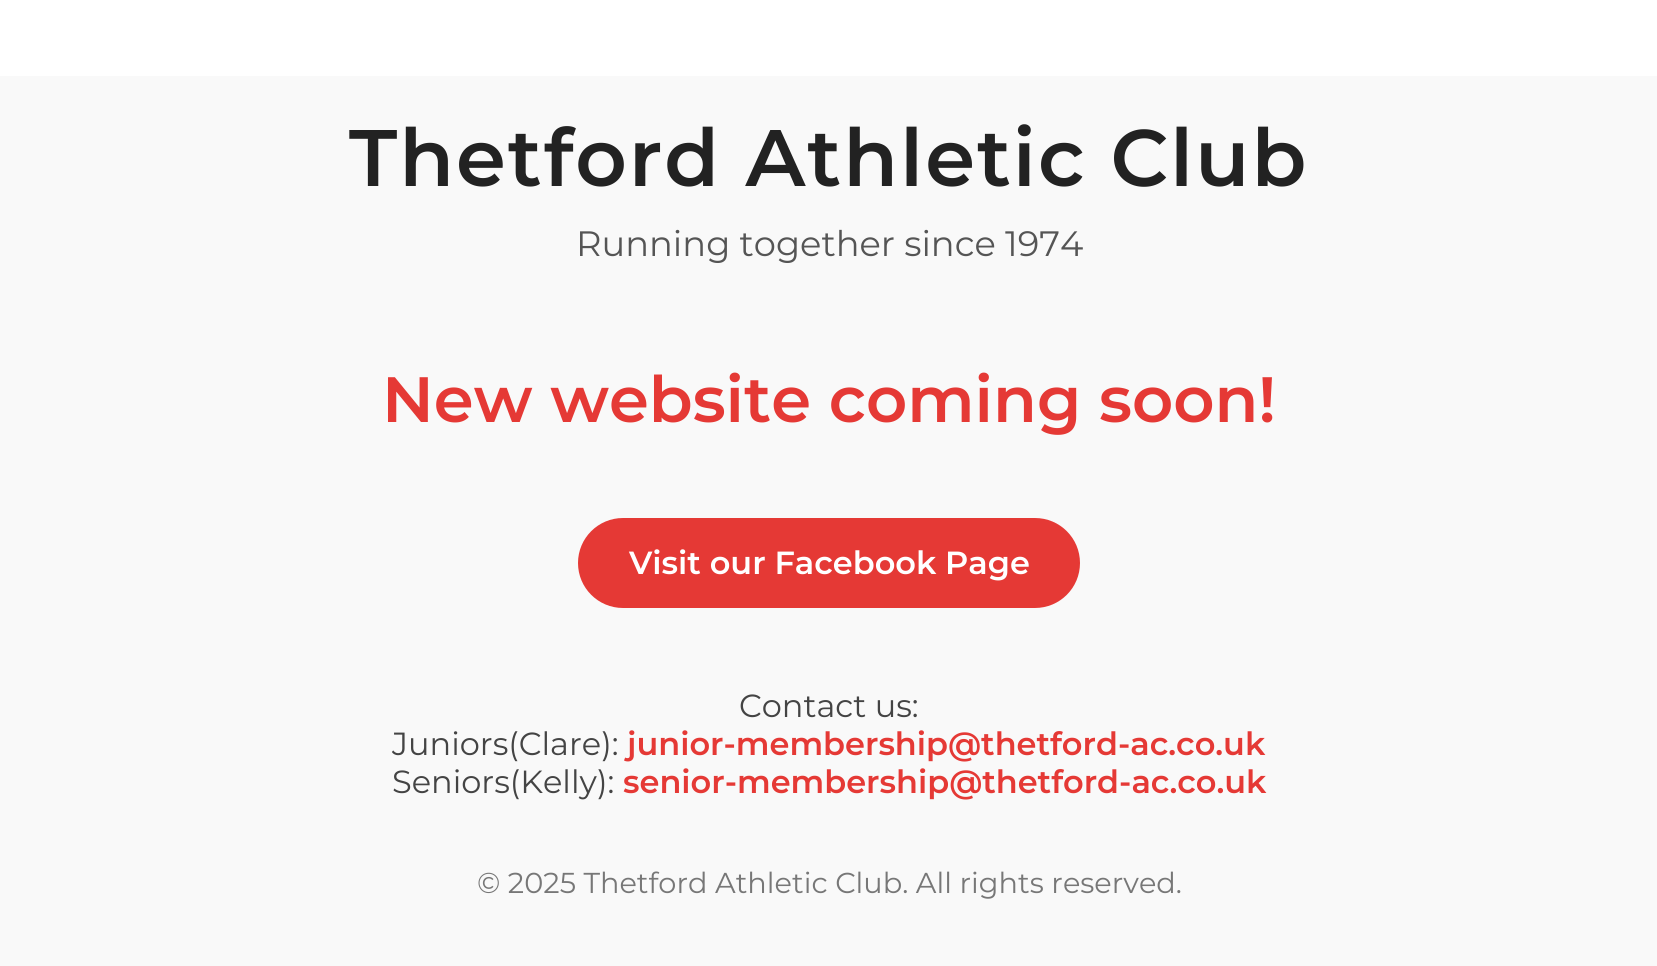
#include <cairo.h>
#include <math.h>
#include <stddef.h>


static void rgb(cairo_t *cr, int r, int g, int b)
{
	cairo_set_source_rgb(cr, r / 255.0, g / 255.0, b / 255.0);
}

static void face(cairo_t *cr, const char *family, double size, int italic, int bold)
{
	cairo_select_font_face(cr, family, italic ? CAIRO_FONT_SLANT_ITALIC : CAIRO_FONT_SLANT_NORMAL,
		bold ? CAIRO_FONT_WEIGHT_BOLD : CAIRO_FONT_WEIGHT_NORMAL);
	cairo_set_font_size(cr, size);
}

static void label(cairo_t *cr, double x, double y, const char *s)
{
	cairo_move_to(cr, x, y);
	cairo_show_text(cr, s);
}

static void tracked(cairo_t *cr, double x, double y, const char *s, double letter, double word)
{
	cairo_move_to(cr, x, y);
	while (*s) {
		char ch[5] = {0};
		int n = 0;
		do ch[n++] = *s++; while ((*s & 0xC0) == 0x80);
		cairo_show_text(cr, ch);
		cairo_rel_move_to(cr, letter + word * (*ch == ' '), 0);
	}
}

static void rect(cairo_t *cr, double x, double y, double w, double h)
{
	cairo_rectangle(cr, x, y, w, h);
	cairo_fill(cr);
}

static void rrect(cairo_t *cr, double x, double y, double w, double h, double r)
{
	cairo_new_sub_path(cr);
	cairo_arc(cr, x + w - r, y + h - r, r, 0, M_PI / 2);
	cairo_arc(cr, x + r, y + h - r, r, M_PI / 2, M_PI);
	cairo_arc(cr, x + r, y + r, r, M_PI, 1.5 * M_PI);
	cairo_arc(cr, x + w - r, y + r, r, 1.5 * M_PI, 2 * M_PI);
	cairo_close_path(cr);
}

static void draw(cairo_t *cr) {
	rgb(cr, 249, 249, 249);
	cairo_paint(cr);
	rgb(cr, 255, 255, 255);
	rect(cr, 0, 0, 1657, 76);
	face(cr, "Montserrat SemiBold", 80, 0, 0);
	rgb(cr, 34, 34, 34);
	tracked(cr, 349, 186, "Thetford Athletic Club", 2, 0);
	face(cr, "Montserrat", 35.25, 0, 0);
	rgb(cr, 85, 85, 85);
	label(cr, 576, 256, "Running together since 1974");
	face(cr, "Montserrat SemiBold", 64, 0, 0);
	rgb(cr, 229, 57, 53);
	label(cr, 382, 422, "New website coming soon!");
	rrect(cr, 578, 518, 502, 90, 45);
	cairo_fill(cr);
	face(cr, "Montserrat SemiBold", 32, 0, 0);
	rgb(cr, 255, 255, 255);
	label(cr, 629, 574, "Visit our Facebook Page");
	face(cr, "Montserrat", 32, 0, 0);
	rgb(cr, 68, 68, 68);
	label(cr, 739, 717, "Contact us:");
	label(cr, 392, 755, "Juniors(Clare):");
	face(cr, "Montserrat SemiBold", 32, 0, 0);
	rgb(cr, 229, 57, 53);
	label(cr, 627, 755, "junior-membership@thetford-ac.co.uk");
	face(cr, "Montserrat", 32, 0, 0);
	rgb(cr, 68, 68, 68);
	label(cr, 392, 793, "Seniors(Kelly):");
	face(cr, "Montserrat SemiBold", 32, 0, 0);
	rgb(cr, 229, 57, 53);
	label(cr, 623, 793, "senior-membership@thetford-ac.co.uk");
	face(cr, "Montserrat", 28.8, 0, 0);
	rgb(cr, 119, 119, 119);
	label(cr, 477, 893, "© 2025 Thetford Athletic Club. All rights reserved.");
}

int main(void) {
	cairo_surface_t *surface = cairo_image_surface_create(CAIRO_FORMAT_RGB24, 1657, 966);
	cairo_t *cr = cairo_create(surface);
	cairo_font_options_t *options = cairo_font_options_create();
	cairo_font_options_set_hint_metrics(options, CAIRO_HINT_METRICS_OFF);
	cairo_font_options_set_hint_style(options, CAIRO_HINT_STYLE_NONE);
	cairo_set_font_options(cr, options);
	cairo_set_miter_limit(cr, 4);
	draw(cr);
	cairo_surface_write_to_png(surface, "render.png");
	cairo_font_options_destroy(options);
	cairo_destroy(cr);
	cairo_surface_destroy(surface);
	return 0;
}
